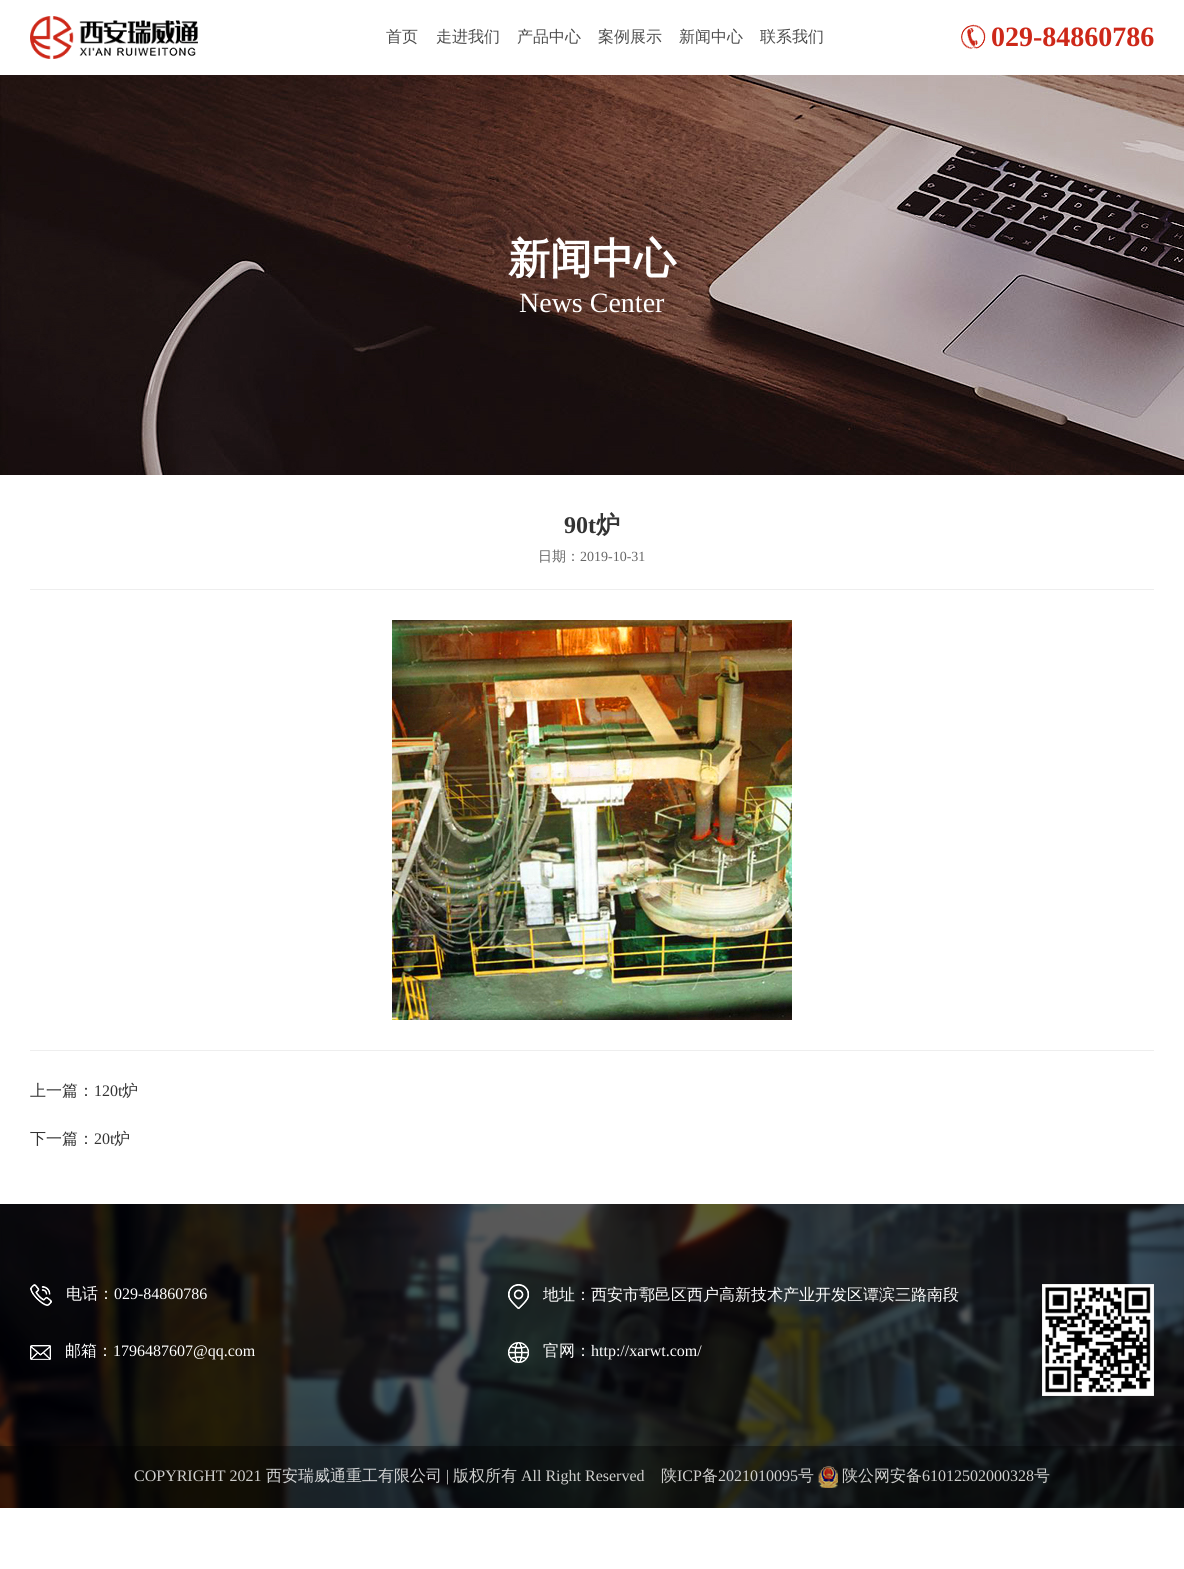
#include <cairo.h>
#include <math.h>
#include <stddef.h>


static void rgb(cairo_t *cr, int r, int g, int b)
{
	cairo_set_source_rgb(cr, r / 255.0, g / 255.0, b / 255.0);
}

static void face(cairo_t *cr, const char *family, double size, int italic, int bold)
{
	cairo_select_font_face(cr, family, italic ? CAIRO_FONT_SLANT_ITALIC : CAIRO_FONT_SLANT_NORMAL,
		bold ? CAIRO_FONT_WEIGHT_BOLD : CAIRO_FONT_WEIGHT_NORMAL);
	cairo_set_font_size(cr, size);
}

static void label(cairo_t *cr, double x, double y, const char *s)
{
	cairo_move_to(cr, x, y);
	cairo_show_text(cr, s);
}

static void rect(cairo_t *cr, double x, double y, double w, double h)
{
	cairo_rectangle(cr, x, y, w, h);
	cairo_fill(cr);
}

static void image(cairo_t *cr, const char *path, double x, double y, double w, double h)
{
	cairo_surface_t *image = cairo_image_surface_create_from_png(path);
	cairo_save(cr);
	cairo_set_source_surface(cr, image, x, y);
	cairo_rectangle(cr, x, y, w, h);
	cairo_fill(cr);
	cairo_restore(cr);
	cairo_surface_destroy(image);
}

static void draw(cairo_t *cr) {
	rgb(cr, 255, 255, 255);
	cairo_paint(cr);
	image(cr, "image0.png", 30, 16, 168, 43);
	face(cr, "WenQuanYi Zen Hei Medium", 16, 0, 0);
	rgb(cr, 76, 76, 76);
	label(cr, 386, 42, "首页");
	label(cr, 436, 42, "走进我们");
	label(cr, 517, 42, "产品中心");
	label(cr, 598, 42, "案例展示");
	label(cr, 679, 42, "新闻中心");
	label(cr, 760, 42, "联系我们");
	image(cr, "image1.png", 961, 24, 25, 25);
	face(cr, "Liberation Serif", 28, 0, 1);
	rgb(cr, 205, 40, 25);
	label(cr, 991, 46, "029-84860786");
	image(cr, "image2.png", 0, 75, 1184, 400);
	face(cr, "WenQuanYi Zen Hei", 42, 0, 1);
	rgb(cr, 255, 255, 255);
	label(cr, 508, 273, "新闻中心");
	face(cr, "Liberation Serif", 28, 0, 0);
	label(cr, 519, 312, "News Center");
	rgb(cr, 238, 238, 238);
	rect(cr, 30, 589, 1124, 1);
	face(cr, "Liberation Serif", 24, 0, 1);
	rgb(cr, 51, 51, 51);
	label(cr, 564, 533, "90t");
	face(cr, "WenQuanYi Zen Hei", 24, 0, 1);
	label(cr, 596, 533, "炉");
	face(cr, "WenQuanYi Zen Hei Medium", 14, 0, 0);
	rgb(cr, 102, 102, 102);
	label(cr, 538, 561, "日期：");
	face(cr, "Liberation Serif", 14, 0, 0);
	label(cr, 580, 561, "2019-10-31");
	rgb(cr, 238, 238, 238);
	rect(cr, 30, 1050, 1124, 1);
	image(cr, "image3.png", 392, 620, 400, 400);
	face(cr, "WenQuanYi Zen Hei Medium", 16, 0, 0);
	rgb(cr, 51, 51, 51);
	label(cr, 30, 1096, "上一篇：");
	face(cr, "Liberation Serif", 16, 0, 0);
	label(cr, 94, 1096, "120t");
	face(cr, "WenQuanYi Zen Hei Medium", 16, 0, 0);
	label(cr, 122, 1096, "炉");
	label(cr, 30, 1144, "下一篇：");
	face(cr, "Liberation Serif", 16, 0, 0);
	label(cr, 94, 1144, "20t");
	face(cr, "WenQuanYi Zen Hei Medium", 16, 0, 0);
	label(cr, 114, 1144, "炉");
	image(cr, "image4.png", 0, 1204, 1184, 304);
	image(cr, "image5.png", 30, 1284, 22, 22);
	rgb(cr, 255, 255, 255);
	label(cr, 66, 1299, "电话：");
	face(cr, "Liberation Serif", 16, 0, 0);
	label(cr, 114, 1299, "029-84860786");
	image(cr, "image6.png", 508, 1284, 21, 25);
	face(cr, "WenQuanYi Zen Hei Medium", 16, 0, 0);
	label(cr, 543, 1300, "地址：西安市鄠邑区西户高新技术产业开发区谭滨三路南段");
	image(cr, "image7.png", 30, 1345, 21, 15);
	label(cr, 65, 1356, "邮箱：");
	face(cr, "Liberation Serif", 16, 0, 0);
	label(cr, 113, 1356, "1796487607@qq.com");
	image(cr, "image8.png", 508, 1342, 21, 21);
	face(cr, "WenQuanYi Zen Hei Medium", 16, 0, 0);
	label(cr, 543, 1356, "官网：");
	face(cr, "Liberation Serif", 16, 0, 0);
	label(cr, 591, 1356, "http://xarwt.com/");
	image(cr, "image9.png", 1042, 1284, 112, 112);
	cairo_set_source_rgba(cr, 0, 0, 0, 0.4);
	rect(cr, 0, 1446, 1184, 62);
	rgb(cr, 207, 207, 205);
	label(cr, 134, 1481, "COPYRIGHT 2021");
	face(cr, "WenQuanYi Zen Hei Medium", 16, 0, 0);
	rgb(cr, 209, 210, 211);
	label(cr, 266, 1481, "西安瑞威通重工有限公司");
	face(cr, "Liberation Serif", 16, 0, 0);
	rgb(cr, 207, 207, 205);
	label(cr, 446, 1481, "|");
	face(cr, "WenQuanYi Zen Hei Medium", 16, 0, 0);
	label(cr, 453, 1481, "版权所有");
	face(cr, "Liberation Serif", 16, 0, 0);
	label(cr, 521, 1481, "All Right Reserved");
	face(cr, "WenQuanYi Zen Hei Medium", 16, 0, 0);
	label(cr, 661, 1481, "陕");
	face(cr, "Liberation Serif", 16, 0, 0);
	label(cr, 677, 1481, "ICP");
	face(cr, "WenQuanYi Zen Hei Medium", 16, 0, 0);
	label(cr, 702, 1481, "备");
	face(cr, "Liberation Serif", 16, 0, 0);
	label(cr, 718, 1481, "2021010095");
	face(cr, "WenQuanYi Zen Hei Medium", 16, 0, 0);
	label(cr, 798, 1481, "号");
	image(cr, "image10.png", 818, 1466, 20, 22);
	label(cr, 842, 1481, "陕公网安备");
	face(cr, "Liberation Serif", 16, 0, 0);
	label(cr, 922, 1481, "61012502000328");
	face(cr, "WenQuanYi Zen Hei Medium", 16, 0, 0);
	label(cr, 1034, 1481, "号");
}

int main(void) {
	cairo_surface_t *surface = cairo_image_surface_create(CAIRO_FORMAT_RGB24, 1184, 1569);
	cairo_t *cr = cairo_create(surface);
	cairo_font_options_t *options = cairo_font_options_create();
	cairo_font_options_set_hint_metrics(options, CAIRO_HINT_METRICS_OFF);
	cairo_font_options_set_hint_style(options, CAIRO_HINT_STYLE_NONE);
	cairo_set_font_options(cr, options);
	cairo_set_miter_limit(cr, 4);
	draw(cr);
	cairo_surface_write_to_png(surface, "render.png");
	cairo_font_options_destroy(options);
	cairo_destroy(cr);
	cairo_surface_destroy(surface);
	return 0;
}
